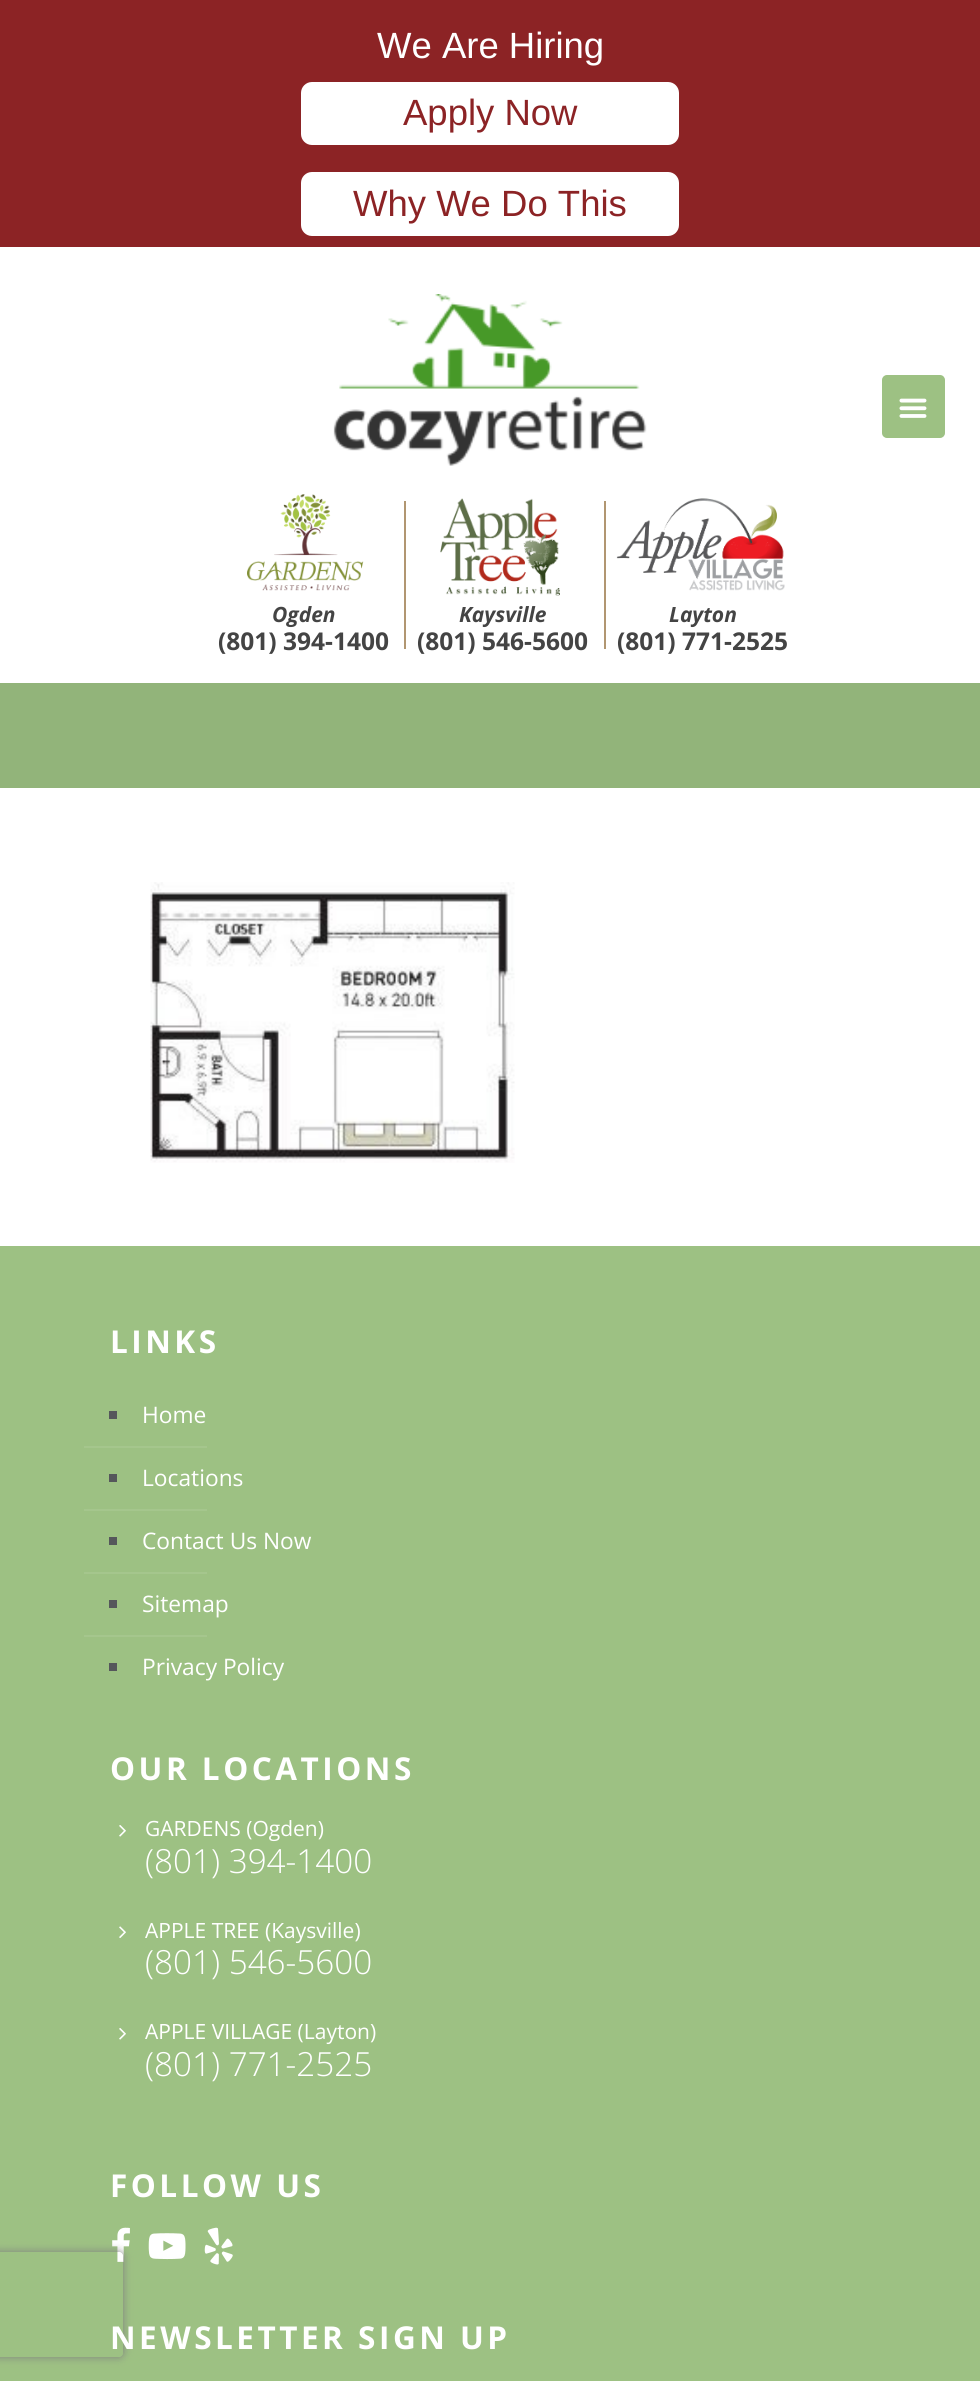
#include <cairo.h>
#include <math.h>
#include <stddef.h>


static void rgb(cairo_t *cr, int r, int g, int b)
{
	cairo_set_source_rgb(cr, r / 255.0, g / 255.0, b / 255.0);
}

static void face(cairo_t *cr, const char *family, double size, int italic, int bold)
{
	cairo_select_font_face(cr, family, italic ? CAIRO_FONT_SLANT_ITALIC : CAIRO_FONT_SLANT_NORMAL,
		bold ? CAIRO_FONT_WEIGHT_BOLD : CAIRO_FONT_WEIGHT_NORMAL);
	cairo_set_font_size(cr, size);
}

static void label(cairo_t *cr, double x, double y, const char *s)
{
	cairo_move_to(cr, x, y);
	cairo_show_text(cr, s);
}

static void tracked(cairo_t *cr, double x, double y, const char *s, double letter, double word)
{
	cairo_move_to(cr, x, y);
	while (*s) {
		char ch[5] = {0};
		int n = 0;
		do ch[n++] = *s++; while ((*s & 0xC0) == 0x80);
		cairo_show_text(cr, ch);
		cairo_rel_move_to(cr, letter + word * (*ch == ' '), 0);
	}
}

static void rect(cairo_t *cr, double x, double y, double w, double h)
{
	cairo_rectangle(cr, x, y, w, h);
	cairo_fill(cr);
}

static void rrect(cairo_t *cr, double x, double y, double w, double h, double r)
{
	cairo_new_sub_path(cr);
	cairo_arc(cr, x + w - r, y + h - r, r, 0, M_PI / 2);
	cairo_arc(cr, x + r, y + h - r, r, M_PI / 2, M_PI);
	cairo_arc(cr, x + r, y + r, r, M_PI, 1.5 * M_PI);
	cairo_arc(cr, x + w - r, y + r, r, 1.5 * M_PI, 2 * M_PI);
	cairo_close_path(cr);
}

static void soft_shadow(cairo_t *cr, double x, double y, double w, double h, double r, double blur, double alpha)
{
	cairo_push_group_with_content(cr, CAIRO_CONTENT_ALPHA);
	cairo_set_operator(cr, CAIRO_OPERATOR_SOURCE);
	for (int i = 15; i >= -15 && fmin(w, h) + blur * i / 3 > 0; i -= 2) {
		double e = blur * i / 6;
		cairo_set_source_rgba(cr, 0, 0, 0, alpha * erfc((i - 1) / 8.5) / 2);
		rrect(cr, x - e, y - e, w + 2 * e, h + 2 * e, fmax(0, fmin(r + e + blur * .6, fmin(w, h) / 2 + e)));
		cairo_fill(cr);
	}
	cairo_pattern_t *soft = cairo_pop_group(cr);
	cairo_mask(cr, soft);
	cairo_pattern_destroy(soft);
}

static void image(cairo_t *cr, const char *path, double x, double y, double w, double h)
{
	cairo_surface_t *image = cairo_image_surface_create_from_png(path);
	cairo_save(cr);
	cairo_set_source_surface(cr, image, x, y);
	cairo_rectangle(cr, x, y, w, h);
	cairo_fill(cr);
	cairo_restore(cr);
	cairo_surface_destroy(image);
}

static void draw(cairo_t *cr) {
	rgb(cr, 255, 255, 255);
	cairo_paint(cr);
	rgb(cr, 140, 35, 37);
	rect(cr, 0, 0, 980, 247);
	face(cr, "Liberation Sans", 36.5, 0, 0);
	rgb(cr, 255, 255, 255);
	label(cr, 377, 58, "We Are Hiring");
	rrect(cr, 301, 82, 378, 63, 11);
	cairo_fill(cr);
	rgb(cr, 140, 35, 37);
	label(cr, 403, 125, "Apply Now");
	rgb(cr, 255, 255, 255);
	rrect(cr, 301, 172, 378, 64, 11);
	cairo_fill(cr);
	rgb(cr, 140, 35, 37);
	label(cr, 353, 216, "Why We Do This");
	image(cr, "image0.png", 333, 294, 314, 172);
	rgb(cr, 157, 193, 131);
	rrect(cr, 883, 376, 61, 61, 4);
	cairo_fill_preserve(cr);
	cairo_stroke(cr);
	image(cr, "image1.png", 899, 398, 28, 20);
	image(cr, "image2.png", 247, 494, 117, 97);
	rgb(cr, 177, 150, 113);
	rect(cr, 404, 501, 2, 148);
	face(cr, "Open Sans", 21, 1, 1);
	rgb(cr, 68, 68, 68);
	label(cr, 272, 622, "Ogden");
	face(cr, "Open Sans", 24.5, 0, 1);
	label(cr, 218, 650, "(801) 394-1400");
	image(cr, "image3.png", 440, 498, 120, 98);
	rgb(cr, 177, 150, 113);
	rect(cr, 604, 501, 2, 148);
	face(cr, "Open Sans", 21, 1, 1);
	rgb(cr, 68, 68, 68);
	label(cr, 459, 622, "Kaysville");
	face(cr, "Open Sans", 24.5, 0, 1);
	label(cr, 417, 650, "(801) 546-5600");
	image(cr, "image4.png", 616, 498, 169, 93);
	face(cr, "Open Sans", 21, 1, 1);
	label(cr, 669, 622, "Layton");
	face(cr, "Open Sans", 24.5, 0, 1);
	label(cr, 617, 650, "(801) 771-2525");
	rgb(cr, 146, 180, 122);
	rect(cr, 0, 683, 980, 105);
	image(cr, "image5.png", 150, 882, 365, 281);
	rgb(cr, 157, 193, 131);
	rect(cr, 0, 1246, 980, 1135);
	face(cr, "Open Sans", 31.5, 0, 1);
	rgb(cr, 255, 255, 255);
	tracked(cr, 110, 1353, "LINKS", 3.5, 0);
	rgb(cr, 85, 87, 91);
	rect(cr, 109, 1411, 8, 8);
	face(cr, "Open Sans", 22.75, 0, 0);
	rgb(cr, 255, 255, 255);
	label(cr, 142, 1423, "Home");
	rgb(cr, 165, 198, 141);
	rect(cr, 84, 1446, 123, 2);
	rgb(cr, 85, 87, 91);
	rect(cr, 109, 1474, 8, 8);
	rgb(cr, 255, 255, 255);
	label(cr, 142, 1486, "Locations");
	rgb(cr, 165, 198, 141);
	rect(cr, 84, 1509, 123, 2);
	rgb(cr, 85, 87, 91);
	rect(cr, 109, 1537, 8, 8);
	rgb(cr, 255, 255, 255);
	label(cr, 142, 1549, "Contact Us Now");
	rgb(cr, 165, 198, 141);
	rect(cr, 84, 1572, 123, 2);
	rgb(cr, 85, 87, 91);
	rect(cr, 109, 1600, 8, 8);
	rgb(cr, 255, 255, 255);
	label(cr, 142, 1612, "Sitemap");
	rgb(cr, 165, 198, 141);
	rect(cr, 84, 1635, 123, 2);
	rgb(cr, 85, 87, 91);
	rect(cr, 109, 1663, 8, 8);
	rgb(cr, 255, 255, 255);
	label(cr, 142, 1675, "Privacy Policy");
	face(cr, "Open Sans", 31.5, 0, 1);
	tracked(cr, 110, 1780, "OUR LOCATIONS", 3.5, 0);
	image(cr, "image6.png", 119, 1825, 7, 12);
	face(cr, "Open Sans", 21, 0, 0);
	label(cr, 145, 1836, "GARDENS (Ogden)");
	face(cr, "Open Sans Light", 33.25, 0, 0);
	label(cr, 145, 1873, "(801) 394-1400");
	image(cr, "image7.png", 119, 1926, 7, 12);
	face(cr, "Open Sans", 21, 0, 0);
	label(cr, 145, 1938, "APPLE TREE (Kaysville)");
	face(cr, "Open Sans Light", 33.25, 0, 0);
	label(cr, 145, 1974, "(801) 546-5600");
	image(cr, "image6.png", 119, 2028, 7, 12);
	face(cr, "Open Sans", 21, 0, 0);
	label(cr, 145, 2039, "APPLE VILLAGE (Layton)");
	face(cr, "Open Sans Light", 33.25, 0, 0);
	label(cr, 145, 2076, "(801) 771-2525");
	face(cr, "Open Sans", 31.5, 0, 1);
	tracked(cr, 110, 2197, "FOLLOW US", 3.5, 0);
	image(cr, "image8.png", 112, 2227, 18, 35);
	image(cr, "image9.png", 148, 2233, 38, 27);
	image(cr, "image10.png", 204, 2227, 29, 38);
	cairo_save(cr);
	cairo_set_fill_rule(cr, CAIRO_FILL_RULE_EVEN_ODD);
	cairo_new_path(cr);
	cairo_move_to(cr, 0, 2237);
	cairo_line_to(cr, 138, 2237);
	cairo_line_to(cr, 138, 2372);
	cairo_line_to(cr, 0, 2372);
	cairo_close_path(cr);
	cairo_move_to(cr, -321, 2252);
	cairo_line_to(cr, 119, 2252);
	cairo_curve_to(cr, 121, 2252, 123, 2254, 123, 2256);
	cairo_line_to(cr, 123, 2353);
	cairo_curve_to(cr, 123, 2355, 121, 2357, 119, 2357);
	cairo_line_to(cr, -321, 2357);
	cairo_curve_to(cr, -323, 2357, -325, 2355, -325, 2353);
	cairo_line_to(cr, -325, 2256);
	cairo_curve_to(cr, -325, 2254, -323, 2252, -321, 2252);
	cairo_close_path(cr);
	cairo_clip(cr);
	rgb(cr, 128, 128, 128);
	soft_shadow(cr, -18, 2252, 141, 105, 4, 4.5, 1);
	cairo_restore(cr);
	tracked(cr, 110, 2349, "NEWSLETTER SIGN UP", 3.5, 0);
}

int main(void) {
	cairo_surface_t *surface = cairo_image_surface_create(CAIRO_FORMAT_RGB24, 980, 2381);
	cairo_t *cr = cairo_create(surface);
	cairo_font_options_t *options = cairo_font_options_create();
	cairo_font_options_set_hint_metrics(options, CAIRO_HINT_METRICS_OFF);
	cairo_font_options_set_hint_style(options, CAIRO_HINT_STYLE_NONE);
	cairo_set_font_options(cr, options);
	cairo_set_miter_limit(cr, 4);
	draw(cr);
	cairo_surface_write_to_png(surface, "render.png");
	cairo_font_options_destroy(options);
	cairo_destroy(cr);
	cairo_surface_destroy(surface);
	return 0;
}
